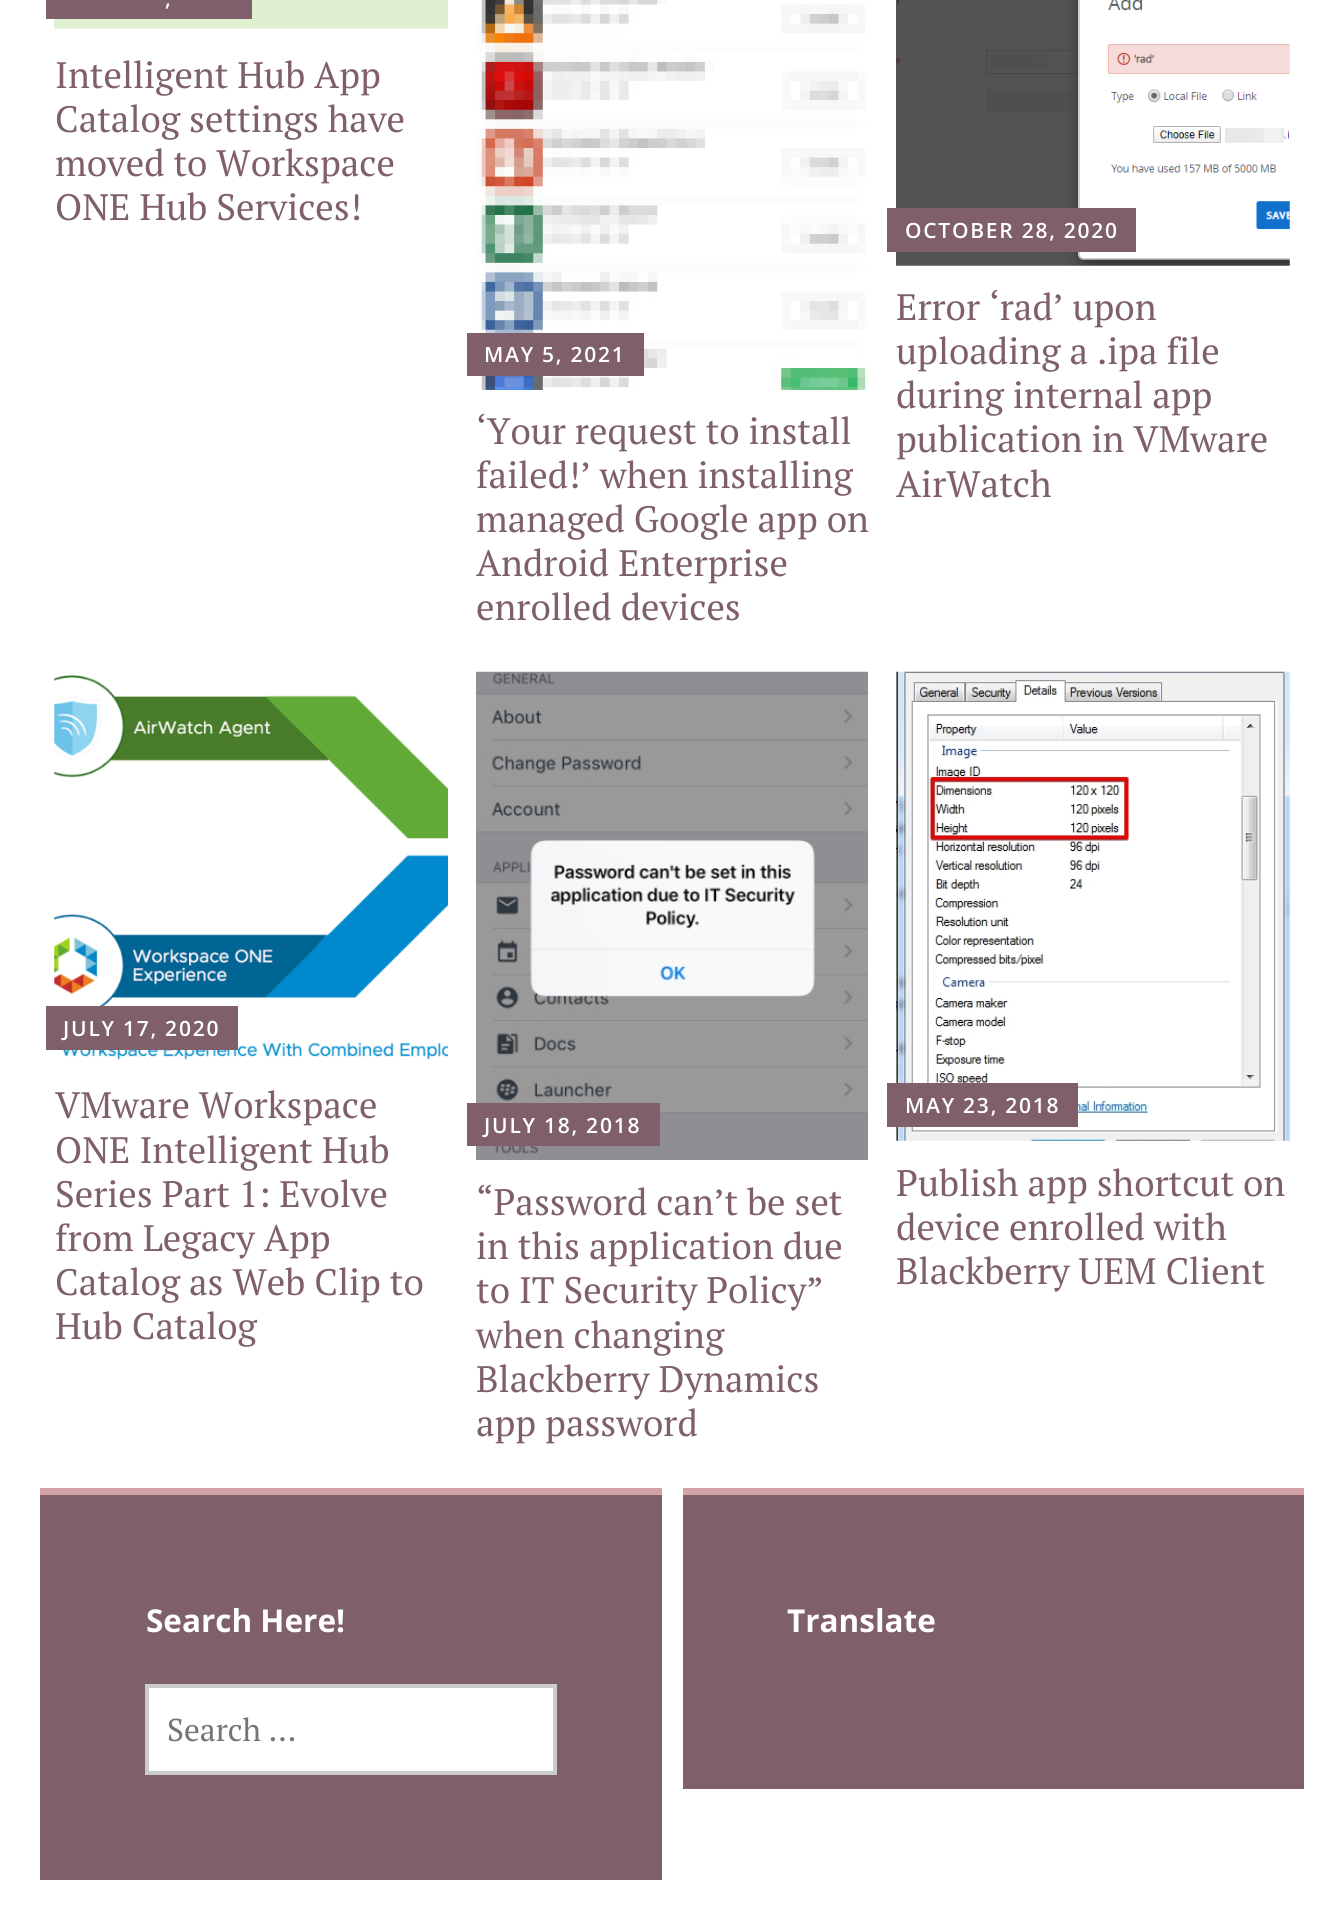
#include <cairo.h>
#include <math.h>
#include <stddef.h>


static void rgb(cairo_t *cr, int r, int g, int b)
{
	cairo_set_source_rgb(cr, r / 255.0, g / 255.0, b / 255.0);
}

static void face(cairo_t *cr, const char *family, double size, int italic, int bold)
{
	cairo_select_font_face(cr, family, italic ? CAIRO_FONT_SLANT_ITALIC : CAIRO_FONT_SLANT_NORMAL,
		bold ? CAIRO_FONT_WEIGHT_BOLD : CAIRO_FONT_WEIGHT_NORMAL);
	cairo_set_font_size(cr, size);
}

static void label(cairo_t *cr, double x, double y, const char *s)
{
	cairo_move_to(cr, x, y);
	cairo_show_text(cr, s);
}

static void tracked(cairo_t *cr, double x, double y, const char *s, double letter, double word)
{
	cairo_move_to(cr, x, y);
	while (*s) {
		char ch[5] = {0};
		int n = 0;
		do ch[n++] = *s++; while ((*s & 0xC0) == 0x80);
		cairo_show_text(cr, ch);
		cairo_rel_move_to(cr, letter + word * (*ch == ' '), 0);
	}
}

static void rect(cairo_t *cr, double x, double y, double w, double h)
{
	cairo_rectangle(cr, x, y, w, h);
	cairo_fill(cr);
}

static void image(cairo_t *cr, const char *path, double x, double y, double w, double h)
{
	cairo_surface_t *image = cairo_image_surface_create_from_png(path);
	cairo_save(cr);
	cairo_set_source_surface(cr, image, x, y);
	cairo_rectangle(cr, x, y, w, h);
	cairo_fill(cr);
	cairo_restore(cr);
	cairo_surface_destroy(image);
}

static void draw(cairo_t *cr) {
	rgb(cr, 255, 255, 255);
	cairo_paint(cr);
	image(cr, "image0.png", 54, 0, 394, 29);
	rgb(cr, 126, 95, 106);
	rect(cr, 46, 0, 206, 19);
	face(cr, "Open Sans SemiBold", 21, 0, 0);
	rgb(cr, 255, 255, 255);
	tracked(cr, 165, 6, ",", 1.75, 0);
	face(cr, "PT Serif", 36.75, 0, 0);
	rgb(cr, 126, 95, 106);
	label(cr, 55, 88, "Intelligent Hub App");
	label(cr, 55, 132, "Catalog settings have");
	label(cr, 55, 176, "moved to Workspace");
	label(cr, 55, 220, "ONE Hub Services!");
	image(cr, "image1.png", 476, 0, 391, 390);
	rect(cr, 467, 333, 177, 43);
	face(cr, "Open Sans SemiBold", 21, 0, 0);
	rgb(cr, 255, 255, 255);
	tracked(cr, 484, 362, "MAY 5, 2021", 1.75, 0);
	face(cr, "PT Serif", 36.75, 0, 0);
	rgb(cr, 126, 95, 106);
	label(cr, 476, 444, "‘Your request to install");
	label(cr, 476, 488, "failed!’ when installing");
	label(cr, 476, 532, "managed Google app on");
	label(cr, 476, 576, "Android Enterprise");
	label(cr, 476, 620, "enrolled devices");
	image(cr, "image2.png", 896, 0, 394, 266);
	rect(cr, 887, 208, 249, 44);
	face(cr, "Open Sans SemiBold", 21, 0, 0);
	rgb(cr, 255, 255, 255);
	tracked(cr, 905, 238, "OCTOBER 28, 2020", 1.75, 0);
	face(cr, "PT Serif", 36.75, 0, 0);
	rgb(cr, 126, 95, 106);
	label(cr, 896, 320, "Error ‘rad’ upon");
	label(cr, 896, 364, "uploading a .ipa file");
	label(cr, 896, 408, "during internal app");
	label(cr, 896, 452, "publication in VMware");
	label(cr, 896, 497, "AirWatch");
	image(cr, "image3.png", 54, 675, 394, 385);
	rect(cr, 46, 1006, 192, 44);
	face(cr, "Open Sans SemiBold", 21, 0, 0);
	rgb(cr, 255, 255, 255);
	tracked(cr, 63, 1036, "JULY 17, 2020", 1.75, 0);
	face(cr, "PT Serif", 36.75, 0, 0);
	rgb(cr, 126, 95, 106);
	label(cr, 55, 1118, "VMware Workspace");
	label(cr, 55, 1163, "ONE Intelligent Hub");
	label(cr, 55, 1207, "Series Part 1: Evolve");
	label(cr, 55, 1251, "from Legacy App");
	label(cr, 55, 1295, "Catalog as Web Clip to");
	label(cr, 55, 1339, "Hub Catalog");
	image(cr, "image4.png", 476, 671, 392, 489);
	rect(cr, 467, 1103, 193, 43);
	face(cr, "Open Sans SemiBold", 21, 0, 0);
	rgb(cr, 255, 255, 255);
	tracked(cr, 484, 1133, "JULY 18, 2018", 1.75, 0);
	face(cr, "PT Serif", 36.75, 0, 0);
	rgb(cr, 126, 95, 106);
	label(cr, 476, 1215, "“Password can’t be set");
	label(cr, 476, 1259, "in this application due");
	label(cr, 476, 1303, "to IT Security Policy”");
	label(cr, 476, 1348, "when changing");
	label(cr, 476, 1392, "Blackberry Dynamics");
	label(cr, 476, 1436, "app password");
	image(cr, "image5.png", 896, 671, 394, 470);
	rect(cr, 887, 1083, 191, 44);
	face(cr, "Open Sans SemiBold", 21, 0, 0);
	rgb(cr, 255, 255, 255);
	tracked(cr, 905, 1113, "MAY 23, 2018", 1.75, 0);
	face(cr, "PT Serif", 36.75, 0, 0);
	rgb(cr, 126, 95, 106);
	label(cr, 896, 1196, "Publish app shortcut on");
	label(cr, 896, 1240, "device enrolled with");
	label(cr, 896, 1284, "Blackberry UEM Client");
	rect(cr, 40, 1495, 622, 385);
	rgb(cr, 211, 163, 165);
	rect(cr, 40, 1488, 622, 7);
	face(cr, "Open Sans", 31.5, 0, 1);
	rgb(cr, 255, 255, 255);
	label(cr, 146, 1632, "Search Here!");
	cairo_rectangle(cr, 147, 1686, 408, 87);
	cairo_fill_preserve(cr);
	rgb(cr, 204, 204, 204);
	cairo_set_line_width(cr, 4);
	cairo_stroke(cr);
	face(cr, "PT Serif", 31.5, 0, 0);
	rgb(cr, 117, 117, 117);
	label(cr, 167, 1741, "Search …");
	rgb(cr, 126, 95, 106);
	rect(cr, 683, 1495, 621, 294);
	rgb(cr, 211, 163, 165);
	rect(cr, 683, 1488, 621, 7);
	face(cr, "Open Sans", 31.5, 0, 1);
	rgb(cr, 255, 255, 255);
	label(cr, 787, 1632, "Translate");
}

int main(void) {
	cairo_surface_t *surface = cairo_image_surface_create(CAIRO_FORMAT_RGB24, 1344, 1921);
	cairo_t *cr = cairo_create(surface);
	cairo_font_options_t *options = cairo_font_options_create();
	cairo_font_options_set_hint_metrics(options, CAIRO_HINT_METRICS_OFF);
	cairo_font_options_set_hint_style(options, CAIRO_HINT_STYLE_NONE);
	cairo_set_font_options(cr, options);
	cairo_set_miter_limit(cr, 4);
	draw(cr);
	cairo_surface_write_to_png(surface, "render.png");
	cairo_font_options_destroy(options);
	cairo_destroy(cr);
	cairo_surface_destroy(surface);
	return 0;
}
